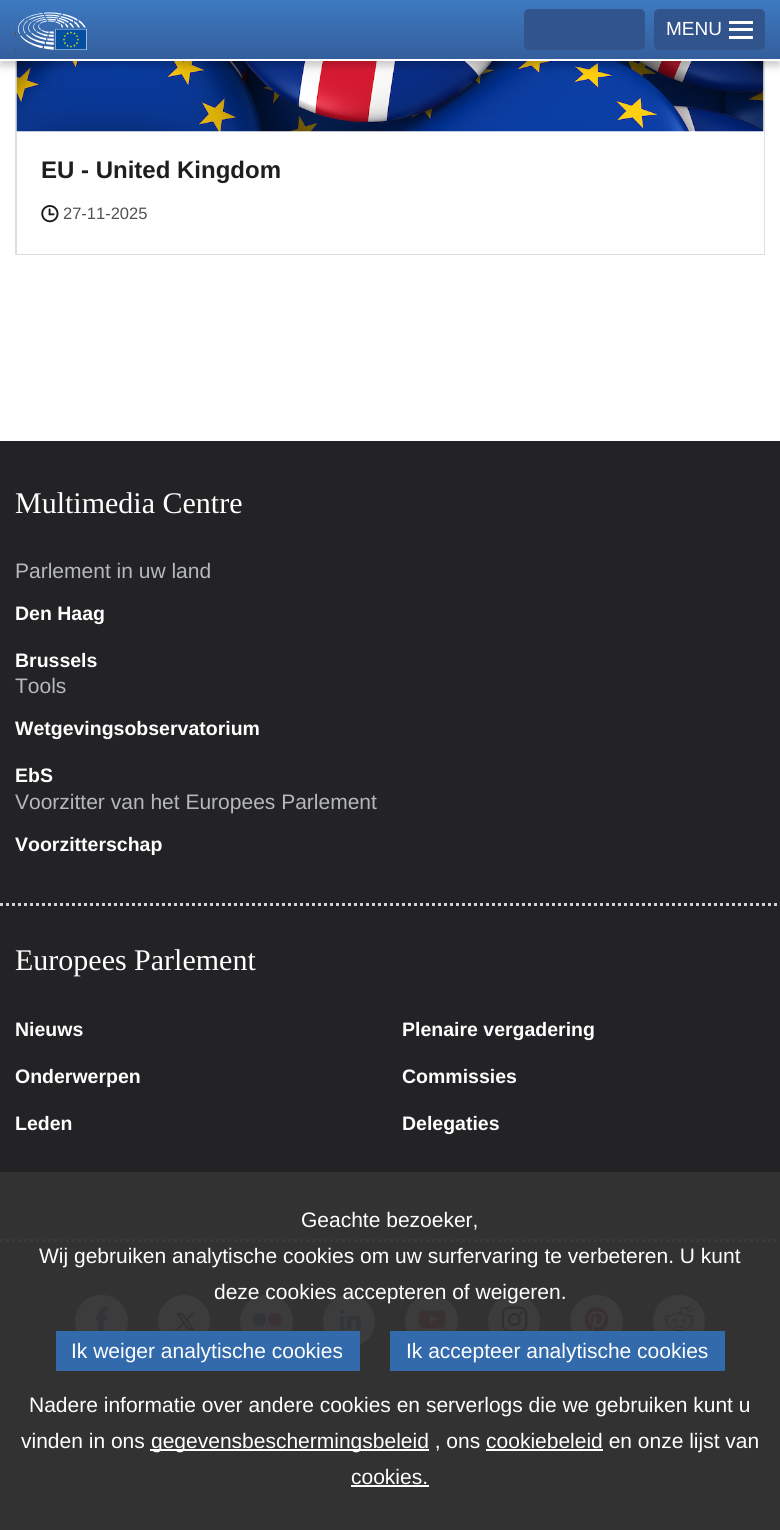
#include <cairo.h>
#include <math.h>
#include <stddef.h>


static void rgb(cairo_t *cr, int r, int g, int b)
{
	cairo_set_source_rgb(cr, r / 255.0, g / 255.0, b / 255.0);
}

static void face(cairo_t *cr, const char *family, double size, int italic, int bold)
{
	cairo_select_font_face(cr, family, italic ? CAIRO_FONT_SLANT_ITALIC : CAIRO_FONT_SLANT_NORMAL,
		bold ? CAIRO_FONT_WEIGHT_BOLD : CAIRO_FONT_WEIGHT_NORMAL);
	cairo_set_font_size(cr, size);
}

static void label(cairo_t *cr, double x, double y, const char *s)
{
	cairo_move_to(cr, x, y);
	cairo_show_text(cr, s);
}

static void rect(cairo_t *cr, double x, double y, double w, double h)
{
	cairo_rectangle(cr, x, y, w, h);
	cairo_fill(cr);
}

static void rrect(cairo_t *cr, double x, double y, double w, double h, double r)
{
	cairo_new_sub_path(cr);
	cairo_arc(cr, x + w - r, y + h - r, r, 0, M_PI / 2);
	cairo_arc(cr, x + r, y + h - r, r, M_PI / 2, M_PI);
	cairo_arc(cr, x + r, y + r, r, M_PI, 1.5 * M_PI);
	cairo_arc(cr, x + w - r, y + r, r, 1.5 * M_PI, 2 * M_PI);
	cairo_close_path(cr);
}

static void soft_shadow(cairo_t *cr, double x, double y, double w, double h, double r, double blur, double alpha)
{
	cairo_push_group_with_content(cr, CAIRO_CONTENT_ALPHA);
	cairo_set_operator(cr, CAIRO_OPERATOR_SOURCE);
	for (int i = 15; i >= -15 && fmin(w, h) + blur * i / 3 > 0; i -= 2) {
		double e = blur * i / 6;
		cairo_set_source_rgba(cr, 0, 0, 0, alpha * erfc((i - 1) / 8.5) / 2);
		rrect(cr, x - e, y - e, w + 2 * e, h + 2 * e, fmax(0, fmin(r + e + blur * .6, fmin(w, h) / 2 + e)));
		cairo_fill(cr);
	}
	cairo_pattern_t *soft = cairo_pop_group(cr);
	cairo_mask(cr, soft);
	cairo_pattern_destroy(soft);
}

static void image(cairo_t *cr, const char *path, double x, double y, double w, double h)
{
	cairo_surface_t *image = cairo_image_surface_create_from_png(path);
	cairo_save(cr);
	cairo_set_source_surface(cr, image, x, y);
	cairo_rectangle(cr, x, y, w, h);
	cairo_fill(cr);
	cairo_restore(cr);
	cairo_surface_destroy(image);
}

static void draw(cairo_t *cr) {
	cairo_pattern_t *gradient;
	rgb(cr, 255, 255, 255);
	cairo_paint(cr);
	cairo_rectangle(cr, 16, -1, 748, 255);
	rgb(cr, 220, 222, 223);
	cairo_stroke(cr);
	rgb(cr, 250, 250, 250);
	rect(cr, 17, 61, 747, 71);
	image(cr, "image1.png", 16, 61, 748, 71);
	rgb(cr, 0, 0, 0);
	soft_shadow(cr, 0, 6, 780, 60, 0, 4, 0.2);
	gradient = cairo_pattern_create_linear(390, 0, 390, 59);
	cairo_pattern_add_color_stop_rgba(gradient, 0, 0.239, 0.478, 0.757, 1);
	cairo_pattern_add_color_stop_rgba(gradient, 1, 0.204, 0.369, 0.612, 1);
	cairo_set_source(cr, gradient);
	cairo_pattern_destroy(gradient);
	rect(cr, 0, 0, 780, 59);
	rgb(cr, 255, 255, 255);
	rect(cr, 0, 59, 780, 2);
	image(cr, "image0.png", 15, 12, 72, 39);
	rgb(cr, 50, 84, 141);
	rrect(cr, 524, 9, 121, 41, 5);
	cairo_fill(cr);
	rrect(cr, 654, 9, 111, 41, 5);
	cairo_fill(cr);
	face(cr, "Liberation Sans", 19, 0, 0);
	rgb(cr, 255, 255, 255);
	label(cr, 666, 35, "MENU");
	rect(cr, 729, 21, 24, 3);
	rect(cr, 729, 28, 24, 3);
	rect(cr, 729, 36, 24, 3);
	rect(cr, 17, 132, 747, 122);
	face(cr, "Liberation Sans", 24, 0, 1);
	rgb(cr, 30, 30, 31);
	label(cr, 41, 178, "EU - United Kingdom");
	image(cr, "image2.png", 41, 205, 18, 18);
	face(cr, "Liberation Sans", 16.5, 0, 0);
	rgb(cr, 80, 81, 84);
	label(cr, 63, 219, "27-11-2025");
	rgb(cr, 35, 34, 37);
	rect(cr, 0, 441, 780, 1089);
	cairo_new_path(cr);
	cairo_move_to(cr, 0, 904.5);
	cairo_line_to(cr, 780, 904.5);
	rgb(cr, 209, 211, 212);
	cairo_set_line_width(cr, 3);
	cairo_set_dash(cr, (double[]){3, 3}, 2, 0);
	cairo_stroke(cr);
	face(cr, "Liberation Serif", 30, 0, 0);
	rgb(cr, 255, 255, 255);
	label(cr, 15, 513, "Multimedia Centre");
	face(cr, "Liberation Sans", 21, 0, 0);
	rgb(cr, 181, 185, 186);
	label(cr, 15, 578, "Parlement in uw land");
	face(cr, "Liberation Sans", 19.5, 0, 1);
	rgb(cr, 255, 255, 255);
	label(cr, 15, 620, "Den Haag");
	label(cr, 15, 667, "Brussels");
	face(cr, "Liberation Sans", 21, 0, 0);
	rgb(cr, 181, 185, 186);
	label(cr, 15, 693, "Tools");
	face(cr, "Liberation Sans", 19.5, 0, 1);
	rgb(cr, 255, 255, 255);
	label(cr, 15, 735, "Wetgevingsobservatorium");
	label(cr, 15, 782, "EbS");
	face(cr, "Liberation Sans", 21, 0, 0);
	rgb(cr, 181, 185, 186);
	label(cr, 15, 809, "Voorzitter van het Europees Parlement");
	face(cr, "Liberation Sans", 19.5, 0, 1);
	rgb(cr, 255, 255, 255);
	label(cr, 15, 851, "Voorzitterschap");
	cairo_new_path(cr);
	cairo_move_to(cr, 0, 1240.5);
	cairo_line_to(cr, 780, 1240.5);
	rgb(cr, 209, 211, 212);
	cairo_stroke(cr);
	face(cr, "Liberation Serif", 30, 0, 0);
	rgb(cr, 255, 255, 255);
	label(cr, 15, 970, "Europees Parlement");
	face(cr, "Liberation Sans", 19.5, 0, 1);
	label(cr, 15, 1036, "Nieuws");
	label(cr, 402, 1036, "Plenaire vergadering");
	label(cr, 15, 1083, "Onderwerpen");
	label(cr, 402, 1083, "Commissies");
	label(cr, 15, 1130, "Leden");
	label(cr, 402, 1130, "Delegaties");
	rrect(cr, 75, 1295, 53, 52, 26);
	cairo_fill(cr);
	image(cr, "image3.png", 96, 1307, 12, 24);
	cairo_arc(cr, 184, 1321, 26, 0, 2 * M_PI);
	cairo_fill(cr);
	image(cr, "image4.png", 175, 1313, 20, 18);
	rrect(cr, 240, 1295, 53, 52, 26);
	cairo_fill(cr);
	image(cr, "image5.png", 252, 1312, 30, 15);
	cairo_arc(cr, 349, 1321, 26, 0, 2 * M_PI);
	cairo_fill(cr);
	image(cr, "image6.png", 339, 1309, 22, 21);
	rrect(cr, 405, 1295, 53, 52, 26);
	cairo_fill(cr);
	image(cr, "image7.png", 418, 1310, 28, 19);
	cairo_arc(cr, 514, 1321, 26, 0, 2 * M_PI);
	cairo_fill(cr);
	image(cr, "image8.png", 501, 1306, 27, 25);
	rrect(cr, 570, 1295, 53, 52, 26);
	cairo_fill(cr);
	image(cr, "image9.png", 584, 1307, 25, 24);
	cairo_arc(cr, 679, 1321, 26, 0, 2 * M_PI);
	cairo_fill(cr);
	image(cr, "image10.png", 664, 1306, 31, 25);
	cairo_set_source_rgba(cr, 0.2, 0.2, 0.2, 0.95);
	rect(cr, 0, 1172, 780, 358);
	face(cr, "Liberation Sans", 21, 0, 0);
	rgb(cr, 255, 255, 255);
	label(cr, 301, 1227, "Geachte bezoeker,");
	label(cr, 39, 1263, "Wij gebruiken analytische cookies om uw surfervaring te verbeteren. U kunt");
	label(cr, 214, 1299, "deze cookies accepteren of weigeren.");
	rgb(cr, 50, 106, 171);
	rect(cr, 56, 1331, 304, 40);
	rgb(cr, 255, 255, 255);
	label(cr, 71, 1358, "Ik weiger analytische cookies");
	rgb(cr, 50, 106, 171);
	rect(cr, 390, 1331, 335, 40);
	rgb(cr, 255, 255, 255);
	label(cr, 406, 1358, "Ik accepteer analytische cookies");
	label(cr, 29, 1412, "Nadere informatie over andere cookies en serverlogs die we gebruiken kunt u");
	label(cr, 21, 1448, "vinden in ons");
	rect(cr, 150, 1449, 279, 2);
	label(cr, 151, 1448, "gegevensbeschermingsbeleid , ons cookiebeleid en onze lijst van");
	rect(cr, 486, 1449, 117, 2);
	label(cr, 351, 1484, "cookies.");
	rect(cr, 351, 1485, 78, 2);
}

int main(void) {
	cairo_surface_t *surface = cairo_image_surface_create(CAIRO_FORMAT_RGB24, 780, 1530);
	cairo_t *cr = cairo_create(surface);
	cairo_font_options_t *options = cairo_font_options_create();
	cairo_font_options_set_hint_metrics(options, CAIRO_HINT_METRICS_OFF);
	cairo_font_options_set_hint_style(options, CAIRO_HINT_STYLE_NONE);
	cairo_set_font_options(cr, options);
	cairo_set_miter_limit(cr, 4);
	draw(cr);
	cairo_surface_write_to_png(surface, "render.png");
	cairo_font_options_destroy(options);
	cairo_destroy(cr);
	cairo_surface_destroy(surface);
	return 0;
}
